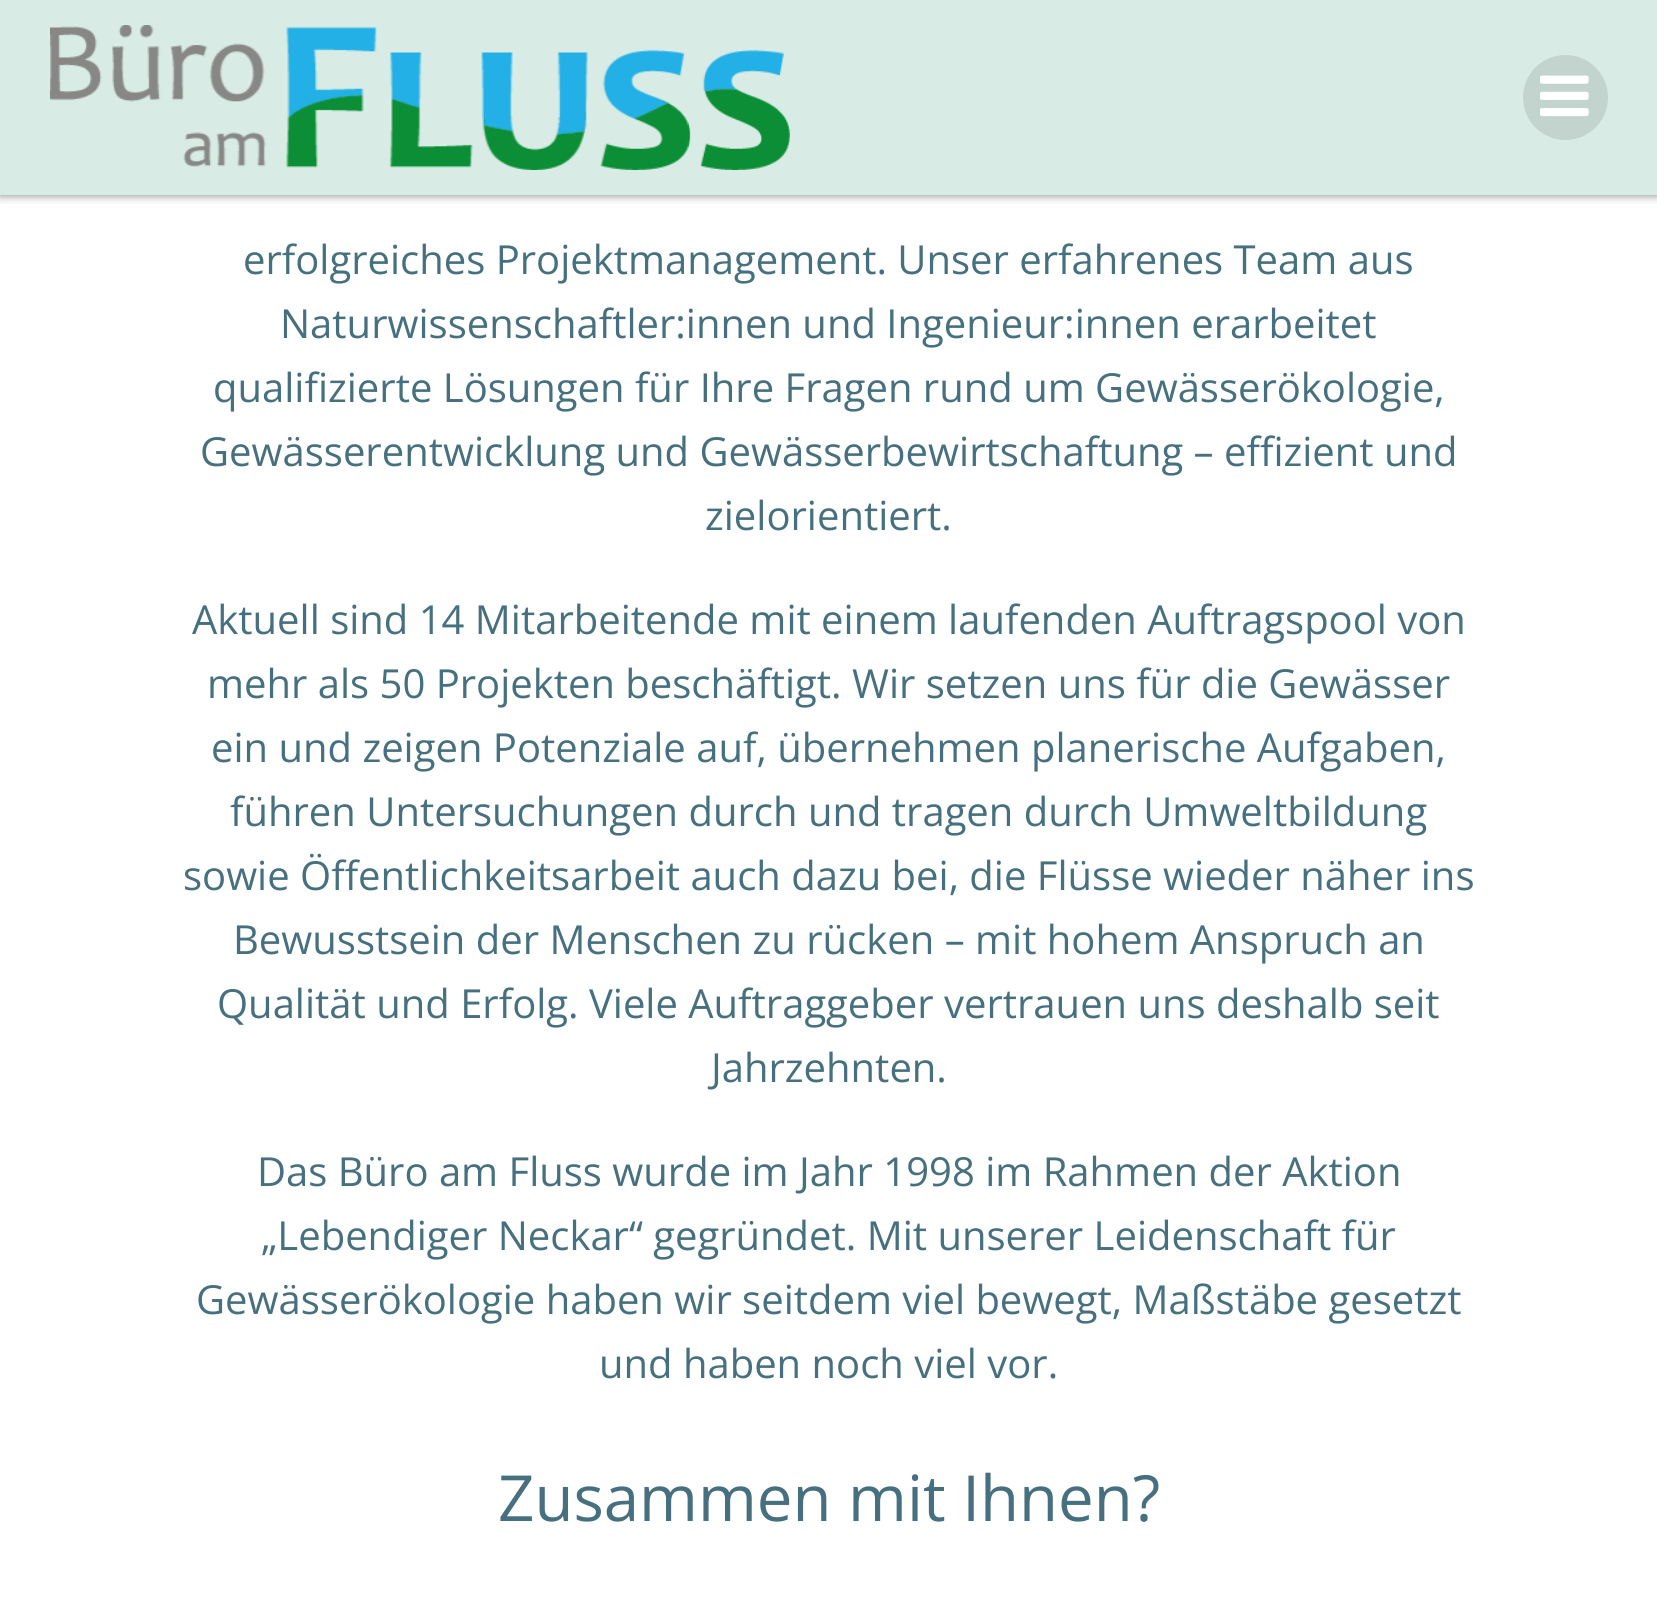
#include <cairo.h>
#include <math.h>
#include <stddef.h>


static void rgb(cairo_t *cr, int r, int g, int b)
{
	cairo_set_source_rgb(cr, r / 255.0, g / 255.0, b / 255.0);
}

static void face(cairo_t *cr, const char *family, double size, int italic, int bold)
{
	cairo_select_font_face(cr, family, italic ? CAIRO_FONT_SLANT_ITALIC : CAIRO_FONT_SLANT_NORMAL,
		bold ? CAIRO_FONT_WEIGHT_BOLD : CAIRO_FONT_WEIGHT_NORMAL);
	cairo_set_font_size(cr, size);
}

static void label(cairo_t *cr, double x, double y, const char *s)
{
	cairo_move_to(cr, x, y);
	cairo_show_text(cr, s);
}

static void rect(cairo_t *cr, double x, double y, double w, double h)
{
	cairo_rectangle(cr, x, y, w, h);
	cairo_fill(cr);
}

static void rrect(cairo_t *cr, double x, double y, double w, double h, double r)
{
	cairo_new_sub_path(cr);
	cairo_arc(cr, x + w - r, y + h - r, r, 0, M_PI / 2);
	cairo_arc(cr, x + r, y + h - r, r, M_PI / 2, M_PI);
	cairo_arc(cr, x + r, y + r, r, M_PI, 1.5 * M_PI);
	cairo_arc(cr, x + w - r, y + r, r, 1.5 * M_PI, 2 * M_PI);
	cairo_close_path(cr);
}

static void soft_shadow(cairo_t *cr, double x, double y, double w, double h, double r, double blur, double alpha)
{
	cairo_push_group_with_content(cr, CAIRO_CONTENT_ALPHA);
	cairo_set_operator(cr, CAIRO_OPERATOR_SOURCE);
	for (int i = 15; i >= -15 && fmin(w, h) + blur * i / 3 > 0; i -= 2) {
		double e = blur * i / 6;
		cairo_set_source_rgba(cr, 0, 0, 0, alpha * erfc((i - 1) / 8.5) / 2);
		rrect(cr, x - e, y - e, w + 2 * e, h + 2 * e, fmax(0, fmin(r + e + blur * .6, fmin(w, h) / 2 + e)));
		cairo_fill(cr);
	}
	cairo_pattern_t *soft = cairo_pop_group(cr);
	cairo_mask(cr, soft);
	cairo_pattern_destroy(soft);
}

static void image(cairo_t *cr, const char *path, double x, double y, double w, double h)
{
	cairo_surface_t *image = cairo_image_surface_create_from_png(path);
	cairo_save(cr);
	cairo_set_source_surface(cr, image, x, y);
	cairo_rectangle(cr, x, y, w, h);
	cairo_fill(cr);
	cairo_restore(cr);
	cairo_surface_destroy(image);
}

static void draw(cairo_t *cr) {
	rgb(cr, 255, 255, 255);
	cairo_paint(cr);
	cairo_save(cr);
	cairo_rectangle(cr, 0, 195, 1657, 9);
	cairo_clip(cr);
	rgb(cr, 0, 0, 0);
	soft_shadow(cr, 0, 0, 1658, 195, 0, 5, 0.5);
	cairo_restore(cr);
	cairo_set_source_rgba(cr, 0.812, 0.902, 0.871, 0.81);
	rect(cr, 0, 0, 1657, 195);
	image(cr, "image0.png", 50, 25, 740, 145);
	rgb(cr, 195, 211, 205);
	cairo_arc(cr, 1565.5, 97.5, 42.5, 0, 2 * M_PI);
	cairo_fill(cr);
	image(cr, "image1.png", 1540, 75, 49, 42);
	face(cr, "Open Sans", 40, 0, 0);
	rgb(cr, 70, 112, 127);
	label(cr, 243, 274, "erfolgreiches Projektmanagement. Unser erfahrenes Team aus");
	label(cr, 280, 338, "Naturwissenschaftler:innen und Ingenieur:innen erarbeitet");
	label(cr, 213, 402, "qualifizierte Lösungen für Ihre Fragen rund um Gewässerökologie,");
	label(cr, 200, 466, "Gewässerentwicklung und Gewässerbewirtschaftung – effizient und");
	label(cr, 705, 530, "zielorientiert.");
	label(cr, 192, 634, "Aktuell sind 14 Mitarbeitende mit einem laufenden Auftragspool von");
	label(cr, 207, 698, "mehr als 50 Projekten beschäftigt. Wir setzen uns für die Gewässer");
	label(cr, 211, 762, "ein und zeigen Potenziale auf, übernehmen planerische Aufgaben,");
	label(cr, 230, 826, "führen Untersuchungen durch und tragen durch Umweltbildung");
	label(cr, 183, 890, "sowie Öffentlichkeitsarbeit auch dazu bei, die Flüsse wieder näher ins");
	label(cr, 233, 954, "Bewusstsein der Menschen zu rücken – mit hohem Anspruch an");
	label(cr, 217, 1018, "Qualität und Erfolg. Viele Auftraggeber vertrauen uns deshalb seit");
	label(cr, 711, 1082, "Jahrzehnten.");
	label(cr, 257, 1186, "Das Büro am Fluss wurde im Jahr 1998 im Rahmen der Aktion");
	label(cr, 261, 1250, "„Lebendiger Neckar“ gegründet. Mit unserer Leidenschaft für");
	label(cr, 196, 1314, "Gewässerökologie haben wir seitdem viel bewegt, Maßstäbe gesetzt");
	label(cr, 599, 1378, "und haben noch viel vor.");
	face(cr, "Open Sans", 63.6, 0, 0);
	label(cr, 498, 1521, "Zusammen mit Ihnen?");
}

int main(void) {
	cairo_surface_t *surface = cairo_image_surface_create(CAIRO_FORMAT_RGB24, 1657, 1610);
	cairo_t *cr = cairo_create(surface);
	cairo_font_options_t *options = cairo_font_options_create();
	cairo_font_options_set_hint_metrics(options, CAIRO_HINT_METRICS_OFF);
	cairo_font_options_set_hint_style(options, CAIRO_HINT_STYLE_NONE);
	cairo_set_font_options(cr, options);
	cairo_set_miter_limit(cr, 4);
	draw(cr);
	cairo_surface_write_to_png(surface, "render.png");
	cairo_font_options_destroy(options);
	cairo_destroy(cr);
	cairo_surface_destroy(surface);
	return 0;
}
